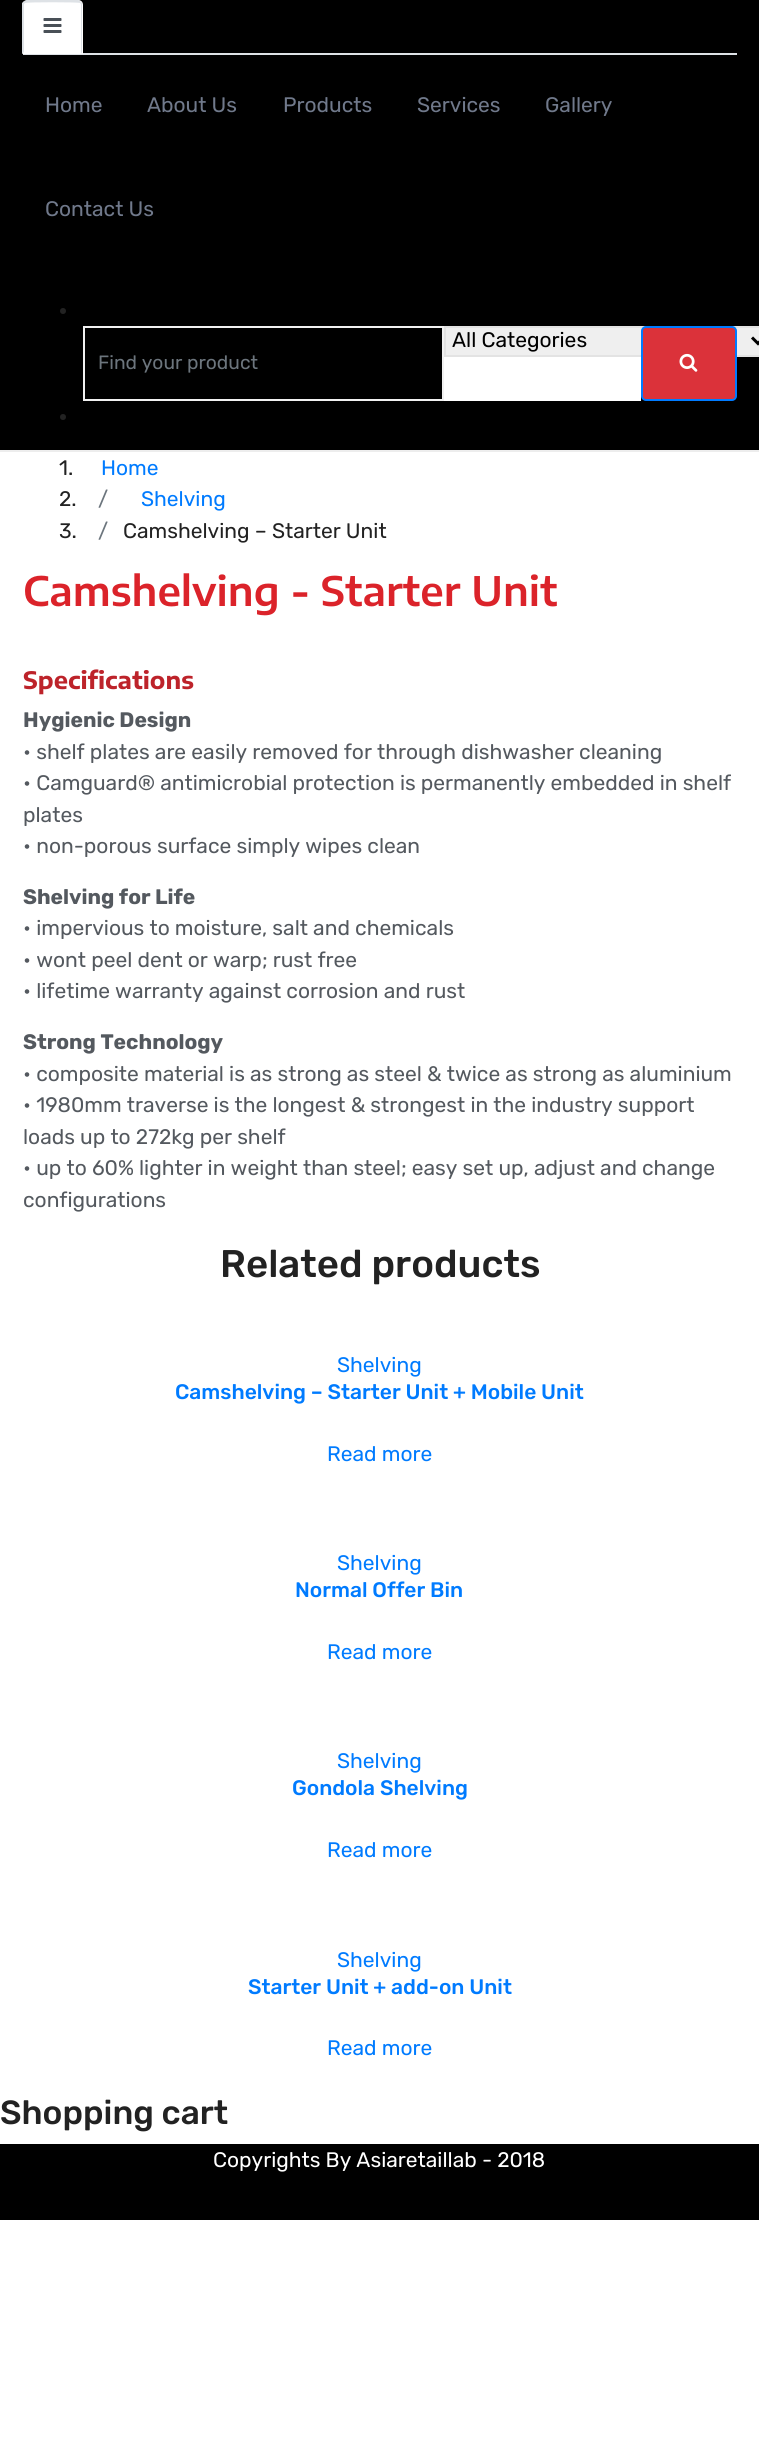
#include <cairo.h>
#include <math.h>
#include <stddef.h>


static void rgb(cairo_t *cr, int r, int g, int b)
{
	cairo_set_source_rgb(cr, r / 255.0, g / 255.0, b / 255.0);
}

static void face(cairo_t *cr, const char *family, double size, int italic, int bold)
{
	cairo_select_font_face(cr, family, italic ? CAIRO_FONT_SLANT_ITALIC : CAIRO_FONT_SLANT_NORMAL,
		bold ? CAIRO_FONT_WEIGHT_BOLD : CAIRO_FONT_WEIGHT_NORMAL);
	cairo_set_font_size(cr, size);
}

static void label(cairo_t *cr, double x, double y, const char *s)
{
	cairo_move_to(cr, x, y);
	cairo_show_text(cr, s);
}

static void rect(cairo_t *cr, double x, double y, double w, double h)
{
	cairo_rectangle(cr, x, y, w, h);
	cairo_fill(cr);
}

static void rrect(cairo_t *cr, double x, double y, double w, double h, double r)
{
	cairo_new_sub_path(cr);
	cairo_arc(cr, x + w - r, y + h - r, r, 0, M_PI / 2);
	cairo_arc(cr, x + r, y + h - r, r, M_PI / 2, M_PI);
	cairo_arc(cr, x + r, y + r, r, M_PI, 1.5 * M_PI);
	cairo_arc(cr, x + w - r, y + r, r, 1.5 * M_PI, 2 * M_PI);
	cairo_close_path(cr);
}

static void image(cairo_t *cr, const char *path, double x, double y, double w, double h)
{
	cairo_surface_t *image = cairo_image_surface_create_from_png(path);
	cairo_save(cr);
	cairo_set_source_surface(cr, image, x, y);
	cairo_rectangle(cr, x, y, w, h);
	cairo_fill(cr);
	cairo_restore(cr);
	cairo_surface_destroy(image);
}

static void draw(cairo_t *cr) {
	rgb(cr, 255, 255, 255);
	cairo_paint(cr);
	rgb(cr, 0, 0, 0);
	rect(cr, 0, 0, 759, 450);
	rgb(cr, 237, 237, 237);
	rect(cr, 0, 450, 759, 2);
	rgb(cr, 222, 226, 230);
	rect(cr, 23, 53, 714, 2);
	rgb(cr, 255, 255, 255);
	cairo_new_path(cr);
	cairo_move_to(cr, 28, 0);
	cairo_line_to(cr, 78, 0);
	cairo_curve_to(cr, 81, 0, 83, 2, 83, 5);
	cairo_line_to(cr, 83, 54);
	cairo_line_to(cr, 23, 54);
	cairo_line_to(cr, 23, 5);
	cairo_curve_to(cr, 23, 2, 25, 0, 28, 0);
	cairo_close_path(cr);
	cairo_fill(cr);
	rgb(cr, 222, 226, 230);
	cairo_new_path(cr);
	cairo_move_to(cr, 27, 0);
	cairo_line_to(cr, 24, 1);
	cairo_line_to(cr, 25, 3);
	cairo_curve_to(cr, 26, 2, 79, 2, 80, 3);
	cairo_line_to(cr, 81, 2);
	cairo_curve_to(cr, 80, 1, 79, 0, 78, 0);
	cairo_close_path(cr);
	cairo_fill(cr);
	cairo_new_path(cr);
	cairo_move_to(cr, 81, 2);
	cairo_curve_to(cr, 82, 2, 82, 4, 82, 5);
	cairo_line_to(cr, 82, 54);
	cairo_line_to(cr, 80, 52);
	cairo_line_to(cr, 81, 52);
	cairo_line_to(cr, 81, 4);
	cairo_line_to(cr, 80, 3);
	cairo_close_path(cr);
	cairo_fill(cr);
	rgb(cr, 255, 255, 255);
	cairo_new_path(cr);
	cairo_move_to(cr, 22, 54);
	cairo_line_to(cr, 82, 54);
	cairo_line_to(cr, 80, 52);
	cairo_line_to(cr, 24, 52);
	cairo_close_path(cr);
	cairo_fill(cr);
	rgb(cr, 222, 226, 230);
	cairo_new_path(cr);
	cairo_move_to(cr, 22, 54);
	cairo_line_to(cr, 22, 3);
	cairo_line_to(cr, 24, 1);
	cairo_line_to(cr, 25, 3);
	cairo_line_to(cr, 24, 4);
	cairo_line_to(cr, 24, 52);
	cairo_close_path(cr);
	cairo_fill(cr);
	image(cr, "image0.png", 43, 18, 19, 15);
	face(cr, "Rubik", 21, 0, 0);
	rgb(cr, 112, 121, 139);
	label(cr, 45, 112, "Home");
	label(cr, 147, 112, "About Us");
	label(cr, 283, 112, "Products");
	label(cr, 417, 112, "Services");
	label(cr, 545, 112, "Gallery");
	label(cr, 45, 216, "Contact Us");
	rgb(cr, 34, 34, 34);
	cairo_new_path(cr);
	cairo_arc(cr, 63, 311, 3, 0, 2 * M_PI);
	cairo_fill(cr);
	rgb(cr, 255, 255, 255);
	rect(cr, 444, 357, 197, 44);
	rgb(cr, 239, 239, 239);
	cairo_rectangle(cr, 445, 327, 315, 29);
	cairo_fill_preserve(cr);
	rgb(cr, 227, 227, 227);
	cairo_stroke(cr);
	cairo_new_path(cr);
	cairo_move_to(cr, 752, 337.5);
	cairo_line_to(cr, 758, 343.5);
	cairo_line_to(cr, 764, 337.5);
	rgb(cr, 0, 0, 0);
	cairo_set_line_width(cr, 3);
	cairo_stroke(cr);
	label(cr, 452, 347, "All Categories");
	rgb(cr, 219, 50, 58);
	rrect(cr, 642, 327, 94, 73, 4);
	cairo_fill_preserve(cr);
	rgb(cr, 0, 123, 255);
	cairo_set_line_width(cr, 2);
	cairo_stroke(cr);
	image(cr, "image1.png", 679, 353, 19, 19);
	cairo_rectangle(cr, 84, 327, 359, 73);
	rgb(cr, 241, 241, 241);
	cairo_stroke(cr);
	face(cr, "Rubik", 19.25, 0, 0);
	rgb(cr, 108, 117, 125);
	label(cr, 98, 369, "Find your product");
	rgb(cr, 34, 34, 34);
	cairo_new_path(cr);
	cairo_arc(cr, 63, 417, 3, 0, 2 * M_PI);
	cairo_fill(cr);
	face(cr, "Rubik", 21, 0, 0);
	label(cr, 59, 475, "1.");
	rgb(cr, 0, 123, 255);
	label(cr, 101, 475, "Home");
	rgb(cr, 34, 34, 34);
	label(cr, 59, 506, "2.");
	rgb(cr, 108, 117, 125);
	label(cr, 98, 506, "/");
	rgb(cr, 0, 123, 255);
	label(cr, 141, 506, "Shelving");
	rgb(cr, 34, 34, 34);
	label(cr, 59, 538, "3.");
	rgb(cr, 108, 117, 125);
	label(cr, 98, 538, "/");
	rgb(cr, 34, 34, 34);
	label(cr, 123, 538, "Camshelving – Starter Unit");
	face(cr, "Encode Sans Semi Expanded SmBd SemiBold", 40.5, 0, 0);
	rgb(cr, 219, 35, 42);
	label(cr, 23, 606, "Camshelving - Starter Unit");
	face(cr, "Encode Sans Semi Expanded", 24, 0, 1);
	rgb(cr, 189, 35, 42);
	label(cr, 23, 689, "Specifications");
	face(cr, "Rubik", 21, 0, 1);
	rgb(cr, 84, 89, 95);
	label(cr, 23, 727, "Hygienic Design");
	face(cr, "Rubik", 21, 0, 0);
	label(cr, 23, 759, "• shelf plates are easily removed for through dishwasher cleaning");
	label(cr, 23, 790, "• Camguard® antimicrobial protection is permanently embedded in shelf");
	label(cr, 23, 822, "plates");
	label(cr, 23, 853, "• non-porous surface simply wipes clean");
	face(cr, "Rubik", 21, 0, 1);
	label(cr, 23, 904, "Shelving for Life");
	face(cr, "Rubik", 21, 0, 0);
	label(cr, 23, 935, "• impervious to moisture, salt and chemicals");
	label(cr, 23, 967, "• wont peel dent or warp; rust free");
	label(cr, 23, 998, "• lifetime warranty against corrosion and rust");
	face(cr, "Rubik", 21, 0, 1);
	label(cr, 23, 1049, "Strong Technology");
	face(cr, "Rubik", 21, 0, 0);
	label(cr, 23, 1081, "• composite material is as strong as steel & twice as strong as aluminium");
	label(cr, 23, 1112, "• 1980mm traverse is the longest & strongest in the industry support");
	label(cr, 23, 1144, "loads up to 272kg per shelf");
	label(cr, 23, 1175, "• up to 60% lighter in weight than steel; easy set up, adjust and change");
	label(cr, 23, 1207, "configurations");
	face(cr, "Rubik Medium", 38.5, 0, 0);
	rgb(cr, 34, 34, 34);
	label(cr, 220, 1277, "Related products");
	face(cr, "Rubik", 21, 0, 0);
	rgb(cr, 0, 123, 255);
	label(cr, 337, 1372, "Shelving");
	face(cr, "Rubik Medium", 21, 0, 0);
	label(cr, 175, 1399, "Camshelving – Starter Unit + Mobile Unit");
	face(cr, "Rubik", 21, 0, 0);
	label(cr, 327, 1461, "Read more");
	label(cr, 337, 1570, "Shelving");
	face(cr, "Rubik Medium", 21, 0, 0);
	label(cr, 295, 1597, "Normal Offer Bin");
	face(cr, "Rubik", 21, 0, 0);
	label(cr, 327, 1659, "Read more");
	label(cr, 337, 1768, "Shelving");
	face(cr, "Rubik Medium", 21, 0, 0);
	label(cr, 292, 1795, "Gondola Shelving");
	face(cr, "Rubik", 21, 0, 0);
	label(cr, 327, 1857, "Read more");
	label(cr, 337, 1967, "Shelving");
	face(cr, "Rubik Medium", 21, 0, 0);
	label(cr, 248, 1994, "Starter Unit + add-on Unit");
	face(cr, "Rubik", 21, 0, 0);
	label(cr, 327, 2055, "Read more");
	face(cr, "Rubik Medium", 33.5, 0, 0);
	rgb(cr, 34, 34, 34);
	label(cr, 0, 2124, "Shopping cart");
	rgb(cr, 0, 0, 0);
	rect(cr, 0, 2144, 759, 76);
	face(cr, "Rubik", 21, 0, 0);
	rgb(cr, 255, 255, 255);
	label(cr, 213, 2167, "Copyrights By Asiaretaillab - 2018");
}

int main(void) {
	cairo_surface_t *surface = cairo_image_surface_create(CAIRO_FORMAT_RGB24, 759, 2451);
	cairo_t *cr = cairo_create(surface);
	cairo_font_options_t *options = cairo_font_options_create();
	cairo_font_options_set_hint_metrics(options, CAIRO_HINT_METRICS_OFF);
	cairo_font_options_set_hint_style(options, CAIRO_HINT_STYLE_NONE);
	cairo_set_font_options(cr, options);
	cairo_set_miter_limit(cr, 4);
	draw(cr);
	cairo_surface_write_to_png(surface, "render.png");
	cairo_font_options_destroy(options);
	cairo_destroy(cr);
	cairo_surface_destroy(surface);
	return 0;
}
